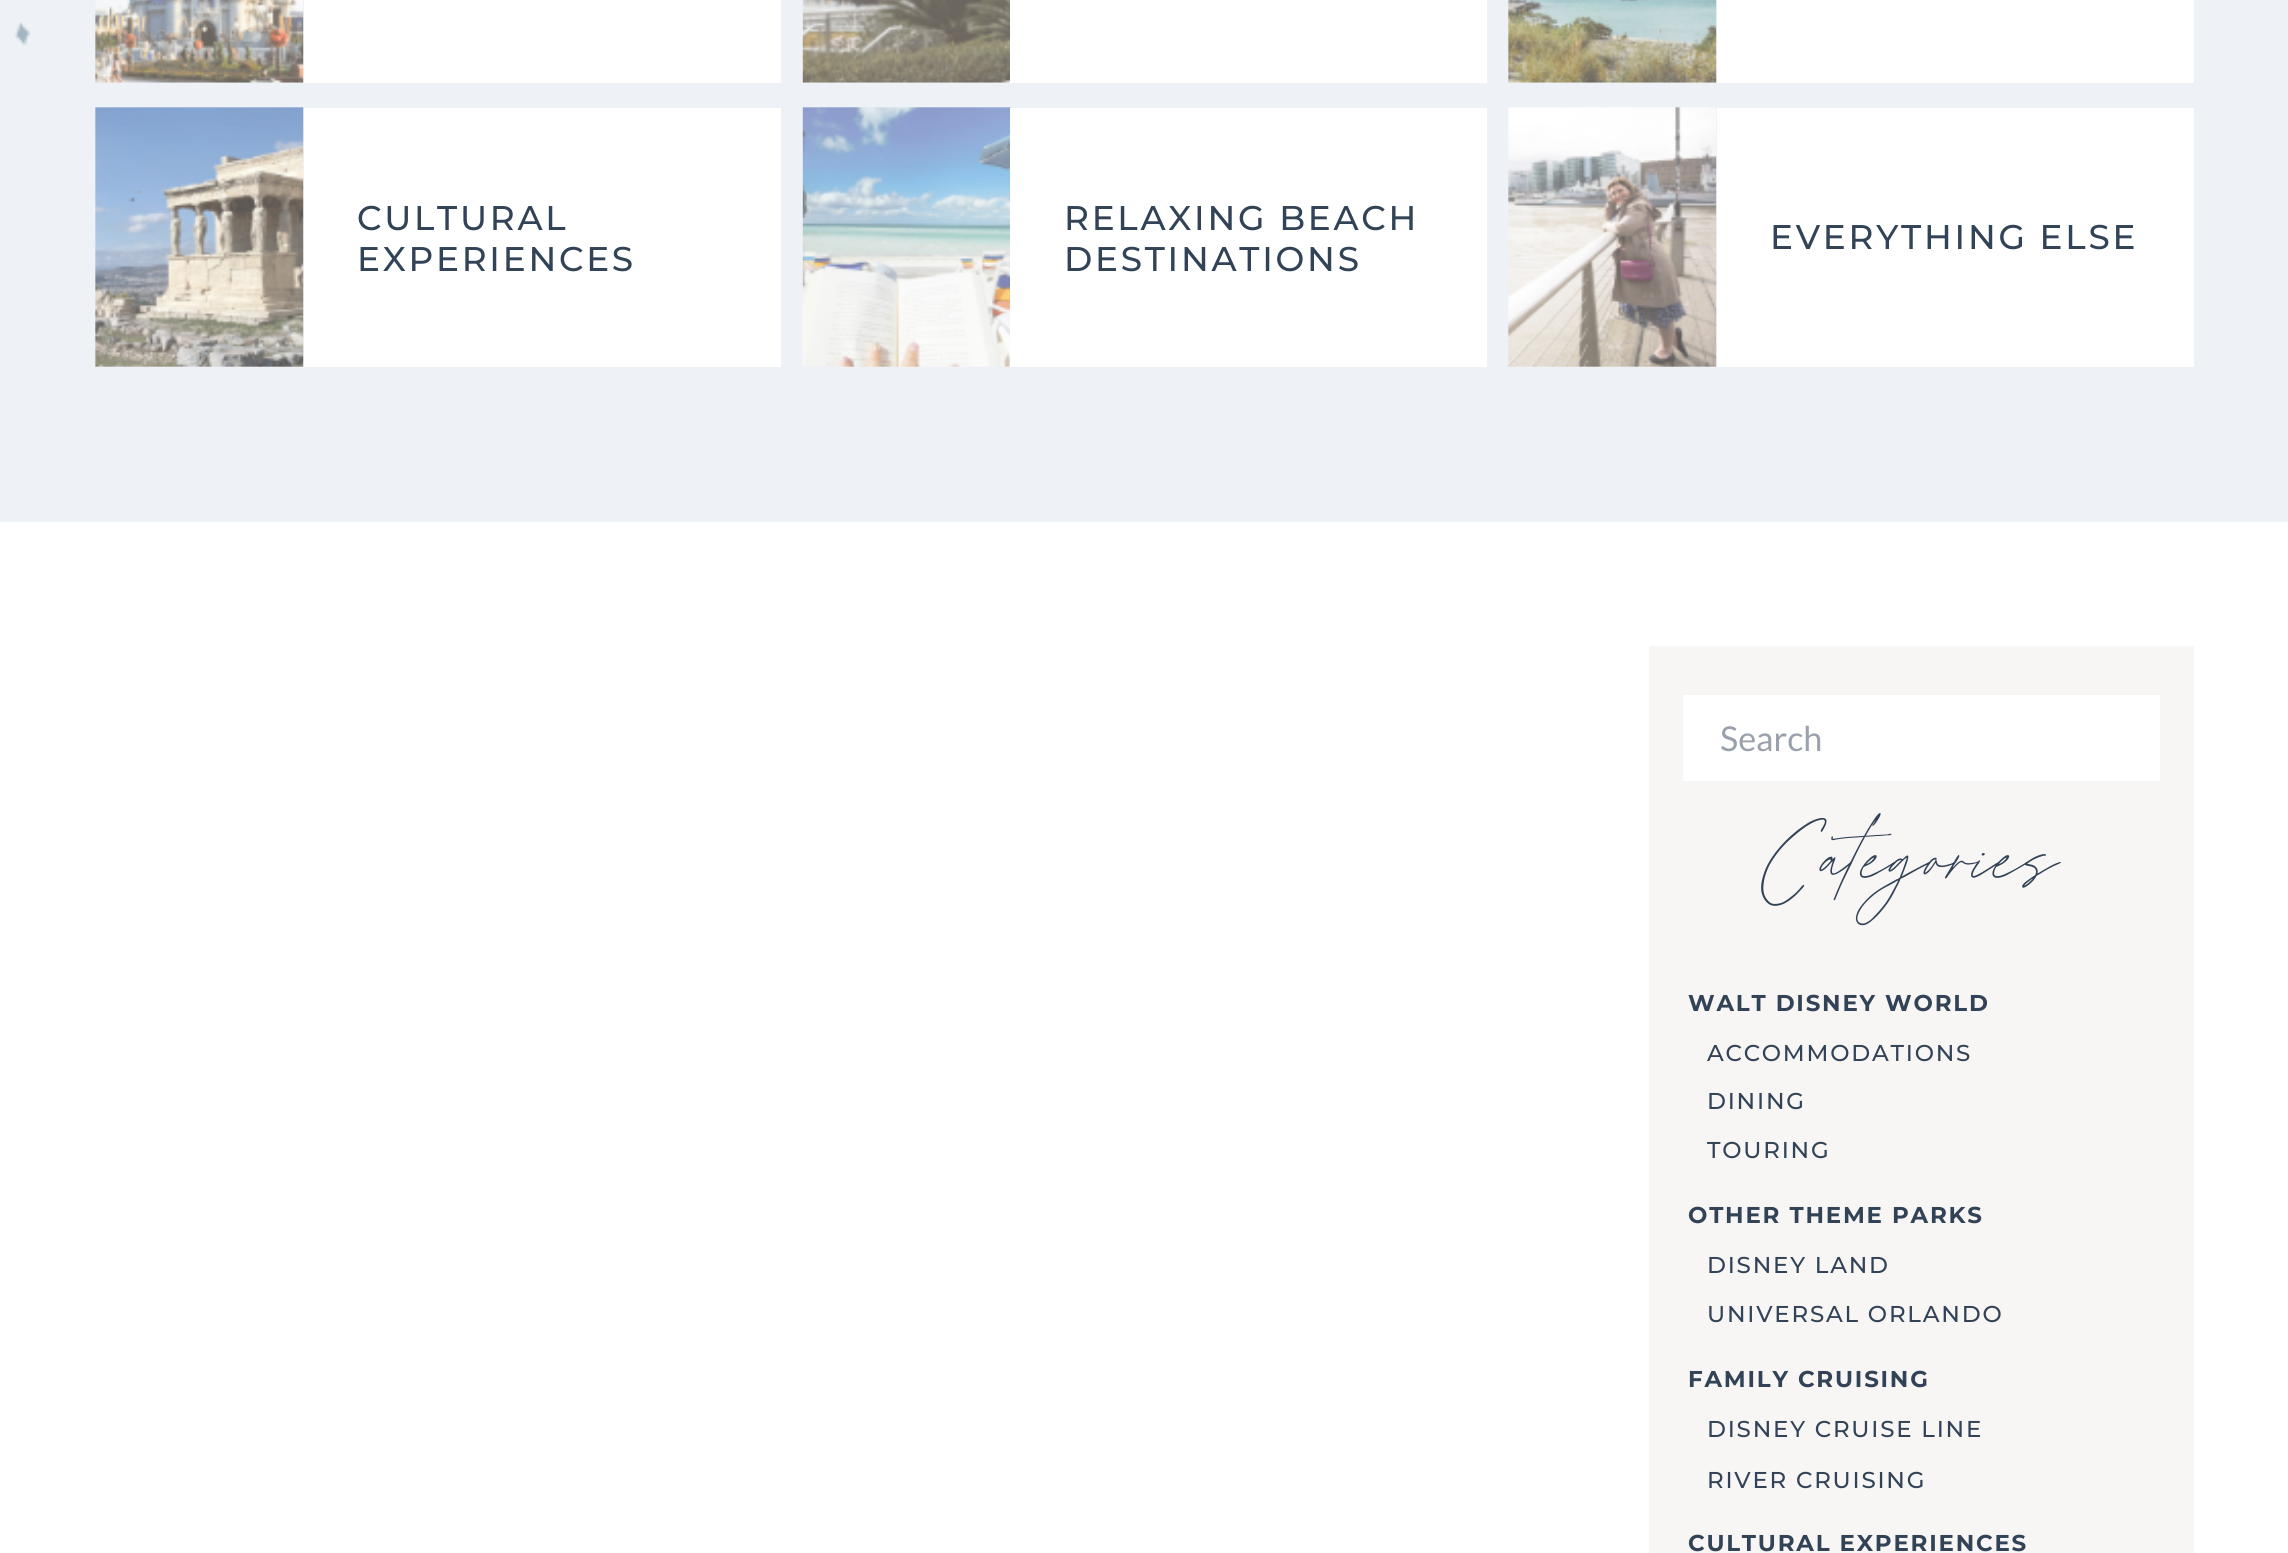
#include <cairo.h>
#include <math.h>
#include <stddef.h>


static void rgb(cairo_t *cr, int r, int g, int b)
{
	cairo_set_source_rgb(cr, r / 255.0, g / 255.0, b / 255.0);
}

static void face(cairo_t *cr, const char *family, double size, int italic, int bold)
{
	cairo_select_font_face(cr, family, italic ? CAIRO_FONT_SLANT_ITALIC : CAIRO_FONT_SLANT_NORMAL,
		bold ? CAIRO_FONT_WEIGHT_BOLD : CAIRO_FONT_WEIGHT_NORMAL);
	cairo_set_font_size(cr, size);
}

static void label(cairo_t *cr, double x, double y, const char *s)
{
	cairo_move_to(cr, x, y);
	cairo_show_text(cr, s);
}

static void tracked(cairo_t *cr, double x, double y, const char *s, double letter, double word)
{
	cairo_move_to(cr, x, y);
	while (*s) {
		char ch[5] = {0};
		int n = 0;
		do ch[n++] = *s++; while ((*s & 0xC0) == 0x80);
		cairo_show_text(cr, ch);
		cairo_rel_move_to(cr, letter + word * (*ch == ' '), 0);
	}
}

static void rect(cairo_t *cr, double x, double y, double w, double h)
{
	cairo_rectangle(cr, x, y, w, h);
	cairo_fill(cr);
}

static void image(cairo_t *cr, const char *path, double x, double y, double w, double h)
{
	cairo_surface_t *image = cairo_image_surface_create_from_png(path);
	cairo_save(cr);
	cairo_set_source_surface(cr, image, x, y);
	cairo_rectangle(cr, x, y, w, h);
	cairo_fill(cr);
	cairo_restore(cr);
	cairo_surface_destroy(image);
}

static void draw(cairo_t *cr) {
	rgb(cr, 255, 255, 255);
	cairo_paint(cr);
	rgb(cr, 238, 241, 245);
	rect(cr, 0, 0, 2288, 522);
	image(cr, "image0.png", 14, 22, 16, 24);
	image(cr, "image1.png", 95, 0, 209, 83);
	rgb(cr, 255, 255, 255);
	rect(cr, 304, 0, 477, 83);
	image(cr, "image2.png", 802, 0, 208, 83);
	rect(cr, 1010, 0, 477, 83);
	image(cr, "image3.png", 1508, 0, 209, 83);
	rect(cr, 1717, 0, 477, 83);
	image(cr, "image4.png", 95, 107, 209, 260);
	rect(cr, 304, 108, 477, 259);
	image(cr, "image5.png", 802, 107, 209, 260);
	rect(cr, 1010, 108, 477, 259);
	image(cr, "image6.png", 1508, 107, 209, 260);
	rect(cr, 1717, 108, 477, 259);
	face(cr, "Montserrat Medium", 34.25, 0, 0);
	rgb(cr, 50, 67, 88);
	tracked(cr, 357, 230, "CULTURAL", 2.75, 0);
	tracked(cr, 357, 271, "EXPERIENCES", 2.75, 0);
	tracked(cr, 1064, 230, "RELAXING BEACH", 2.75, 0);
	tracked(cr, 1064, 271, "DESTINATIONS", 2.75, 0);
	tracked(cr, 1770, 249, "EVERYTHING ELSE", 2.75, 0);
	rgb(cr, 248, 246, 244);
	rect(cr, 1649, 646, 545, 907);
	rgb(cr, 255, 255, 255);
	rect(cr, 1683, 695, 477, 86);
	face(cr, "Lato", 34.25, 0, 0);
	rgb(cr, 153, 161, 172);
	label(cr, 1720, 751, "Search");
	face(cr, "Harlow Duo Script", 61, 0, 0);
	rgb(cr, 50, 67, 88);
	label(cr, 1774, 901, "Categories");
	face(cr, "Montserrat", 22.9, 0, 1);
	tracked(cr, 1688, 1011, "WALT DISNEY WORLD", 1.8, 0);
	face(cr, "Montserrat Medium", 22.9, 0, 0);
	tracked(cr, 1707, 1061, "ACCOMMODATIONS", 1.8, 0);
	tracked(cr, 1707, 1109, "DINING", 1.8, 0);
	tracked(cr, 1707, 1158, "TOURING", 1.8, 0);
	face(cr, "Montserrat", 22.9, 0, 1);
	tracked(cr, 1688, 1223, "OTHER THEME PARKS", 1.8, 0);
	face(cr, "Montserrat Medium", 22.9, 0, 0);
	tracked(cr, 1707, 1273, "DISNEY LAND", 1.8, 0);
	tracked(cr, 1707, 1322, "UNIVERSAL ORLANDO", 1.8, 0);
	face(cr, "Montserrat", 22.9, 0, 1);
	tracked(cr, 1688, 1387, "FAMILY CRUISING", 1.8, 0);
	face(cr, "Montserrat Medium", 22.9, 0, 0);
	tracked(cr, 1707, 1437, "DISNEY CRUISE LINE", 1.8, 0);
	tracked(cr, 1707, 1488, "RIVER CRUISING", 1.8, 0);
	face(cr, "Montserrat", 22.9, 0, 1);
	tracked(cr, 1688, 1551, "CULTURAL EXPERIENCES", 1.8, 0);
}

int main(void) {
	cairo_surface_t *surface = cairo_image_surface_create(CAIRO_FORMAT_RGB24, 2288, 1553);
	cairo_t *cr = cairo_create(surface);
	cairo_font_options_t *options = cairo_font_options_create();
	cairo_font_options_set_hint_metrics(options, CAIRO_HINT_METRICS_OFF);
	cairo_font_options_set_hint_style(options, CAIRO_HINT_STYLE_NONE);
	cairo_set_font_options(cr, options);
	cairo_set_miter_limit(cr, 4);
	draw(cr);
	cairo_surface_write_to_png(surface, "render.png");
	cairo_font_options_destroy(options);
	cairo_destroy(cr);
	cairo_surface_destroy(surface);
	return 0;
}
